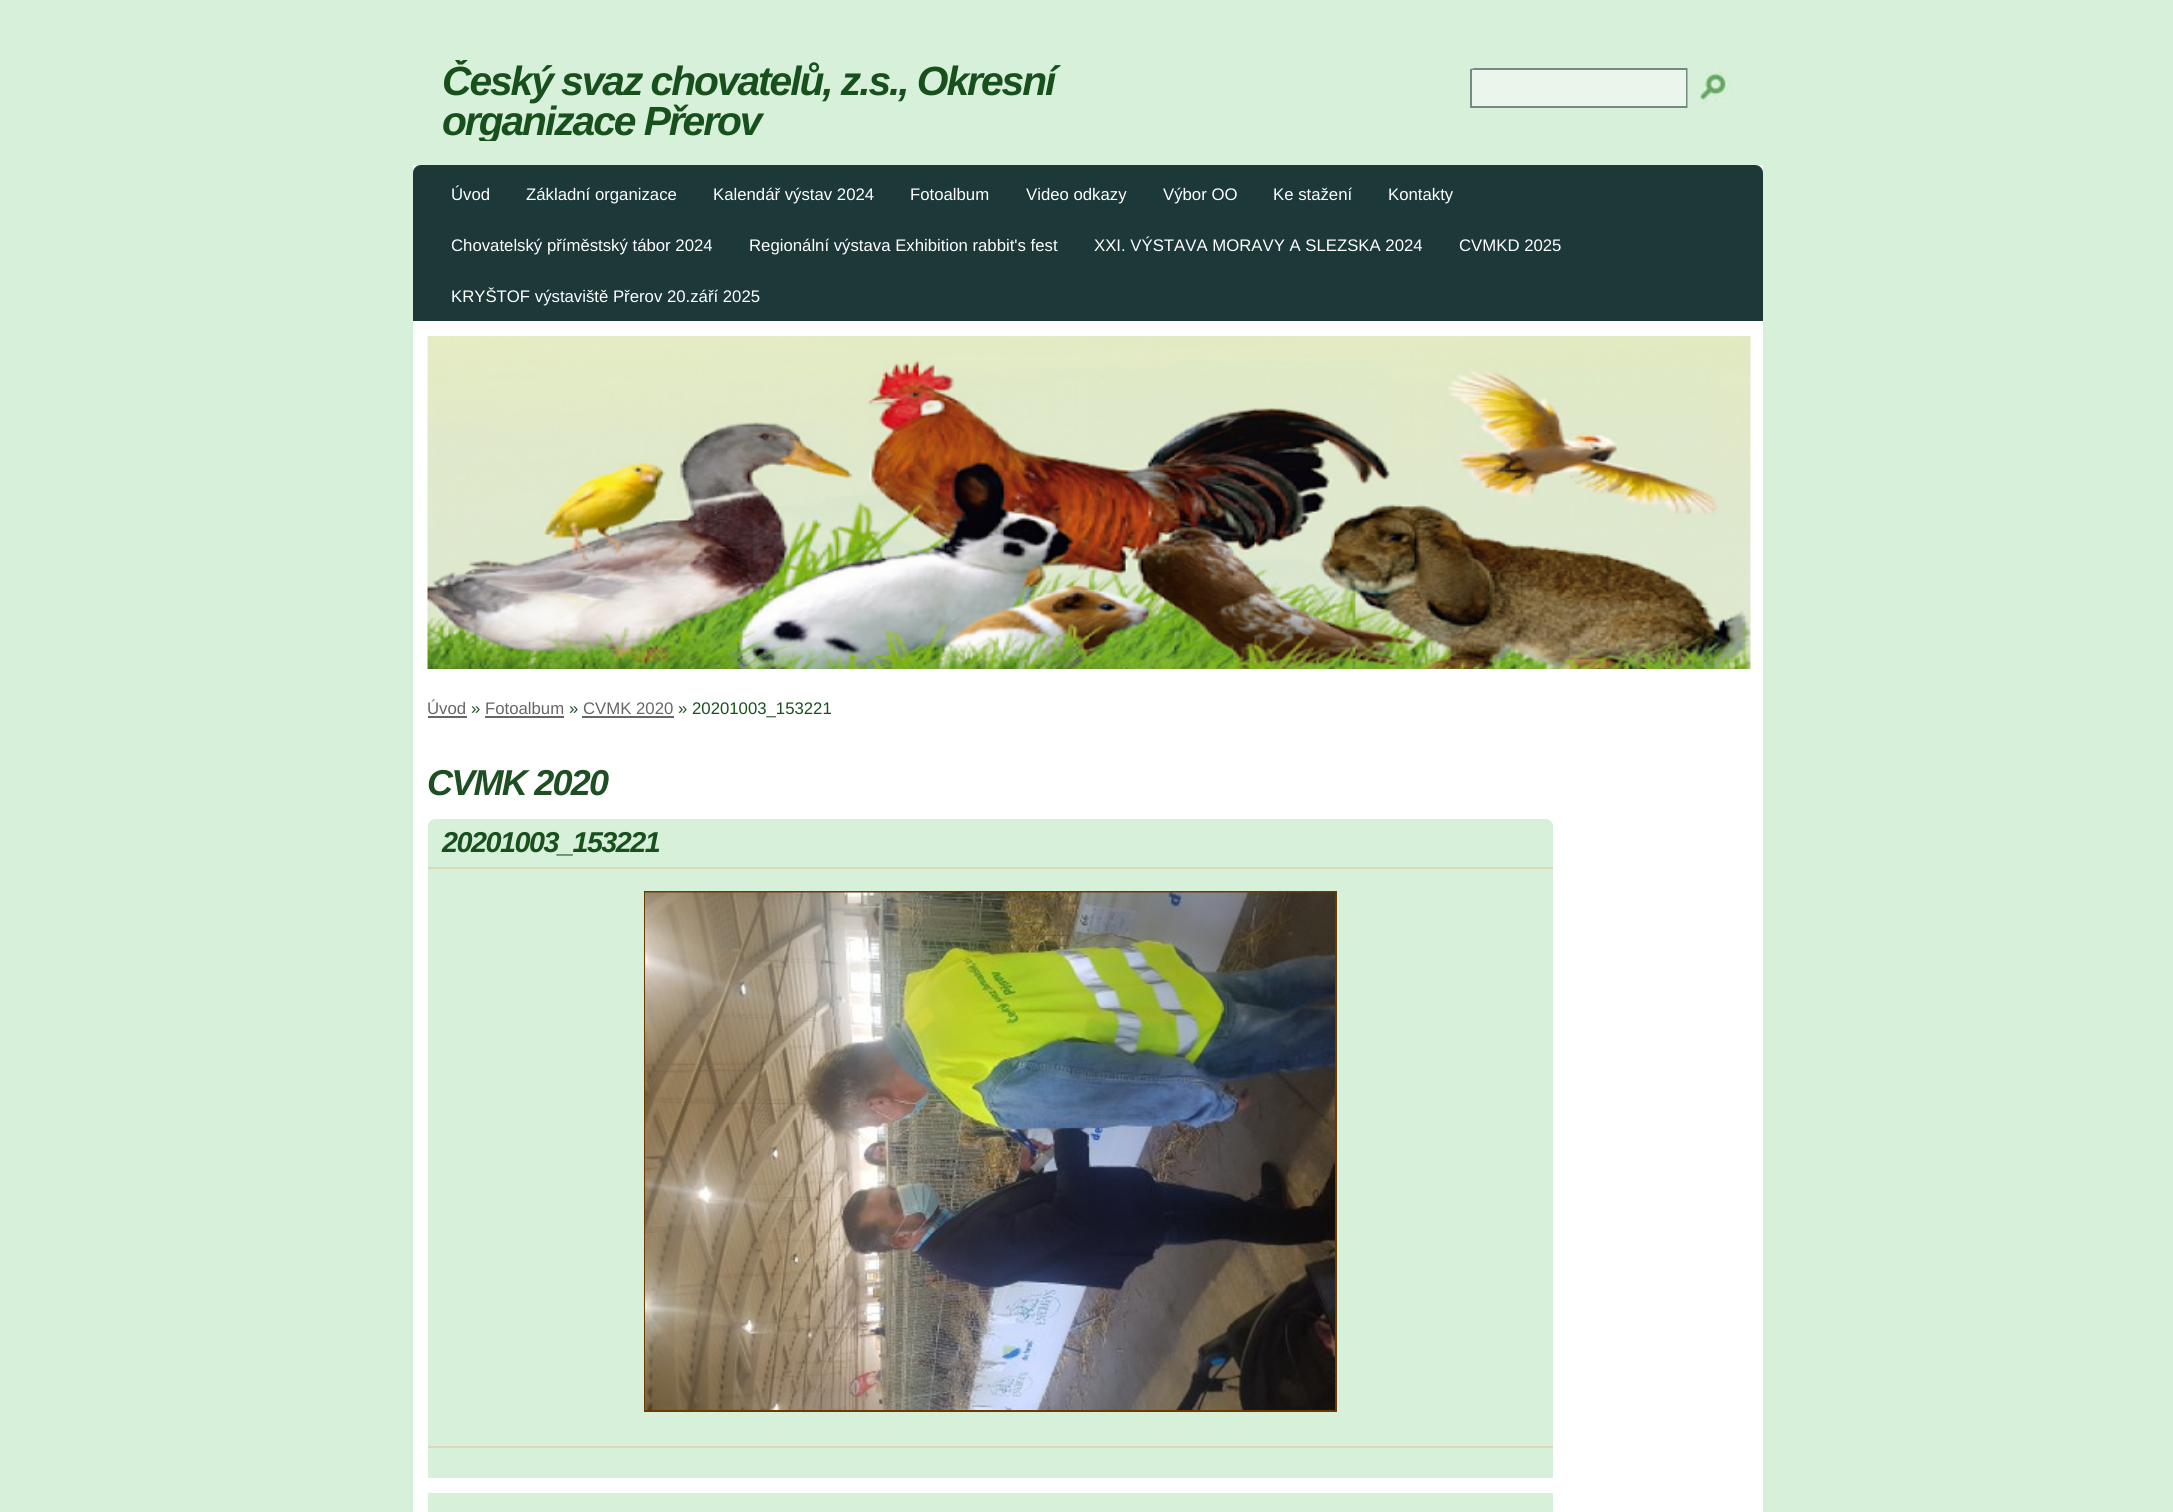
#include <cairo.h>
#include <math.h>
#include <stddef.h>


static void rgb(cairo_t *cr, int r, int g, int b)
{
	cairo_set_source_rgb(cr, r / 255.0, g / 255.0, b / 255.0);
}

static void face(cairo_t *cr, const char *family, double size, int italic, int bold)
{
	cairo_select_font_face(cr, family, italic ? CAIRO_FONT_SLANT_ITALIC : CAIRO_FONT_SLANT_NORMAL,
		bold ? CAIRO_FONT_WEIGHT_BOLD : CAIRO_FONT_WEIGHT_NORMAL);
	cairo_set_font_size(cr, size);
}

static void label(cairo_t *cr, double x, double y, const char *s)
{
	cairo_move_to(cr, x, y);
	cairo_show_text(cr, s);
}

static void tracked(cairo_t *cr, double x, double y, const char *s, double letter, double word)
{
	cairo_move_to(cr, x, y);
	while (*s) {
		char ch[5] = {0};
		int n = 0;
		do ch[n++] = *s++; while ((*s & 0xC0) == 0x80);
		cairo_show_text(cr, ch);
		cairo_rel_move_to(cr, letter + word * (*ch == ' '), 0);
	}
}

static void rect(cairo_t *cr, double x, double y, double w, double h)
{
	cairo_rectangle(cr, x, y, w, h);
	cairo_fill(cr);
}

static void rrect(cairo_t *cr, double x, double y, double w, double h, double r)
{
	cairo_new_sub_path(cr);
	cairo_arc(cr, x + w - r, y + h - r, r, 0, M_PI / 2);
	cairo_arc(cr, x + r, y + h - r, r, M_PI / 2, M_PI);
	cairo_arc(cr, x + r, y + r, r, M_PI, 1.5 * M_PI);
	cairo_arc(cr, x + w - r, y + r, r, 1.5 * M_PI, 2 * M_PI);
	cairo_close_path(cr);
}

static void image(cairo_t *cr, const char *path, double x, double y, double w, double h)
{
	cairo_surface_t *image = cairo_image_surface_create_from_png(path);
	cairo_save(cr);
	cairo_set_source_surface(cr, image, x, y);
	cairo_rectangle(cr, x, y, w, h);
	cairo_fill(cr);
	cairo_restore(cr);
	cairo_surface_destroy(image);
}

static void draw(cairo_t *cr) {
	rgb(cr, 215, 240, 217);
	cairo_paint(cr);
	rgb(cr, 255, 255, 255);
	rect(cr, 413, 165, 1350, 1347);
	image(cr, "image0.png", 427, 336, 1324, 333);
	cairo_save(cr);
	cairo_rectangle(cr, 443, 60, 750, 81);
	cairo_clip(cr);
	face(cr, "Liberation Sans", 40.75, 1, 1);
	rgb(cr, 24, 80, 29);
	tracked(cr, 442, 95, "Český svaz chovatelů, z.s., Okresní", -2.05, 0);
	tracked(cr, 442, 135, "organizace Přerov", -2.05, 0);
	cairo_restore(cr);
	cairo_save(cr);
	rrect(cr, 1463, 68, 300, 51, 12);
	cairo_clip(cr);
	rgb(cr, 234, 246, 235);
	rect(cr, 1470, 68, 218, 40);
	cairo_restore(cr);
	cairo_set_source_rgba(cr, 0.114, 0.216, 0.224, 0.57);
	cairo_set_fill_rule(cr, CAIRO_FILL_RULE_EVEN_ODD);
	cairo_new_path(cr);
	cairo_move_to(cr, 1475, 68);
	cairo_line_to(cr, 1470, 69);
	cairo_line_to(cr, 1470, 108);
	cairo_line_to(cr, 1688, 108);
	cairo_line_to(cr, 1688, 68);
	cairo_close_path(cr);
	cairo_move_to(cr, 1472, 70);
	cairo_line_to(cr, 1472, 106);
	cairo_line_to(cr, 1686, 106);
	cairo_line_to(cr, 1686, 70);
	cairo_close_path(cr);
	cairo_fill(cr);
	image(cr, "image1.png", 1687, 68, 46, 40);
	rgb(cr, 29, 56, 57);
	cairo_new_path(cr);
	cairo_move_to(cr, 421, 165);
	cairo_line_to(cr, 1755, 165);
	cairo_curve_to(cr, 1759.5, 165, 1763, 168.5, 1763, 173);
	cairo_line_to(cr, 1763, 321);
	cairo_line_to(cr, 413, 321);
	cairo_line_to(cr, 413, 173);
	cairo_curve_to(cr, 413, 168.5, 416.5, 165, 421, 165);
	cairo_close_path(cr);
	cairo_fill(cr);
	face(cr, "Liberation Sans", 16.75, 0, 0);
	rgb(cr, 255, 255, 255);
	label(cr, 451, 200, "Úvod");
	label(cr, 526, 200, "Základní organizace");
	label(cr, 713, 200, "Kalendář výstav 2024");
	label(cr, 910, 200, "Fotoalbum");
	label(cr, 1026, 200, "Video odkazy");
	label(cr, 1163, 200, "Výbor OO");
	label(cr, 1273, 200, "Ke stažení");
	label(cr, 1388, 200, "Kontakty");
	label(cr, 451, 251, "Chovatelský příměstský tábor 2024");
	label(cr, 749, 251, "Regionální výstava Exhibition rabbit's fest");
	label(cr, 1094, 251, "XXI. VÝSTAVA MORAVY A SLEZSKA 2024");
	label(cr, 1459, 251, "CVMKD 2025");
	label(cr, 451, 302, "KRYŠTOF výstaviště Přerov 20.září 2025");
	rgb(cr, 102, 102, 102);
	label(cr, 427, 714, "Úvod");
	rect(cr, 428, 716, 39, 2);
	rgb(cr, 30, 79, 34);
	label(cr, 471, 714, "»");
	rgb(cr, 102, 102, 102);
	label(cr, 485, 714, "Fotoalbum");
	rect(cr, 485, 716, 79, 2);
	rgb(cr, 30, 79, 34);
	label(cr, 569, 714, "»");
	rgb(cr, 102, 102, 102);
	label(cr, 583, 714, "CVMK 2020");
	rect(cr, 582, 716, 92, 2);
	rgb(cr, 30, 79, 34);
	label(cr, 678, 714, "»");
	rgb(cr, 24, 80, 29);
	label(cr, 692, 714, "20201003_153221");
	face(cr, "Liberation Sans", 36, 1, 1);
	rgb(cr, 30, 79, 34);
	tracked(cr, 427, 795, "CVMK 2020", -1.75, 0);
	rgb(cr, 215, 240, 217);
	cairo_new_path(cr);
	cairo_move_to(cr, 436, 819);
	cairo_line_to(cr, 1545, 819);
	cairo_curve_to(cr, 1549.5, 819, 1553, 822.5, 1553, 827);
	cairo_line_to(cr, 1553, 1478);
	cairo_line_to(cr, 428, 1478);
	cairo_line_to(cr, 428, 827);
	cairo_curve_to(cr, 428, 822.5, 431.5, 819, 436, 819);
	cairo_close_path(cr);
	cairo_fill(cr);
	cairo_new_path(cr);
	cairo_move_to(cr, 436, 819);
	cairo_line_to(cr, 1545, 819);
	cairo_curve_to(cr, 1549.5, 819, 1553, 822.5, 1553, 827);
	cairo_line_to(cr, 1553, 869);
	cairo_line_to(cr, 428, 869);
	cairo_line_to(cr, 428, 827);
	cairo_curve_to(cr, 428, 822.5, 431.5, 819, 436, 819);
	cairo_close_path(cr);
	cairo_fill(cr);
	rgb(cr, 222, 215, 182);
	rect(cr, 428, 867, 1125, 2);
	face(cr, "Liberation Sans", 28.75, 1, 1);
	rgb(cr, 24, 80, 29);
	tracked(cr, 442, 852, "20201003_153221", -1.5, 0);
	rgb(cr, 222, 215, 182);
	rect(cr, 428, 1446, 1125, 2);
	cairo_rectangle(cr, 645, 892, 691, 519);
	rgb(cr, 108, 58, 0);
	cairo_stroke(cr);
	image(cr, "image2.png", 645, 892, 690, 518);
	rgb(cr, 215, 240, 217);
	rect(cr, 428, 1493, 1125, 19);
}

int main(void) {
	cairo_surface_t *surface = cairo_image_surface_create(CAIRO_FORMAT_RGB24, 2173, 1512);
	cairo_t *cr = cairo_create(surface);
	cairo_font_options_t *options = cairo_font_options_create();
	cairo_font_options_set_hint_metrics(options, CAIRO_HINT_METRICS_OFF);
	cairo_font_options_set_hint_style(options, CAIRO_HINT_STYLE_NONE);
	cairo_set_font_options(cr, options);
	cairo_set_miter_limit(cr, 4);
	draw(cr);
	cairo_surface_write_to_png(surface, "render.png");
	cairo_font_options_destroy(options);
	cairo_destroy(cr);
	cairo_surface_destroy(surface);
	return 0;
}
